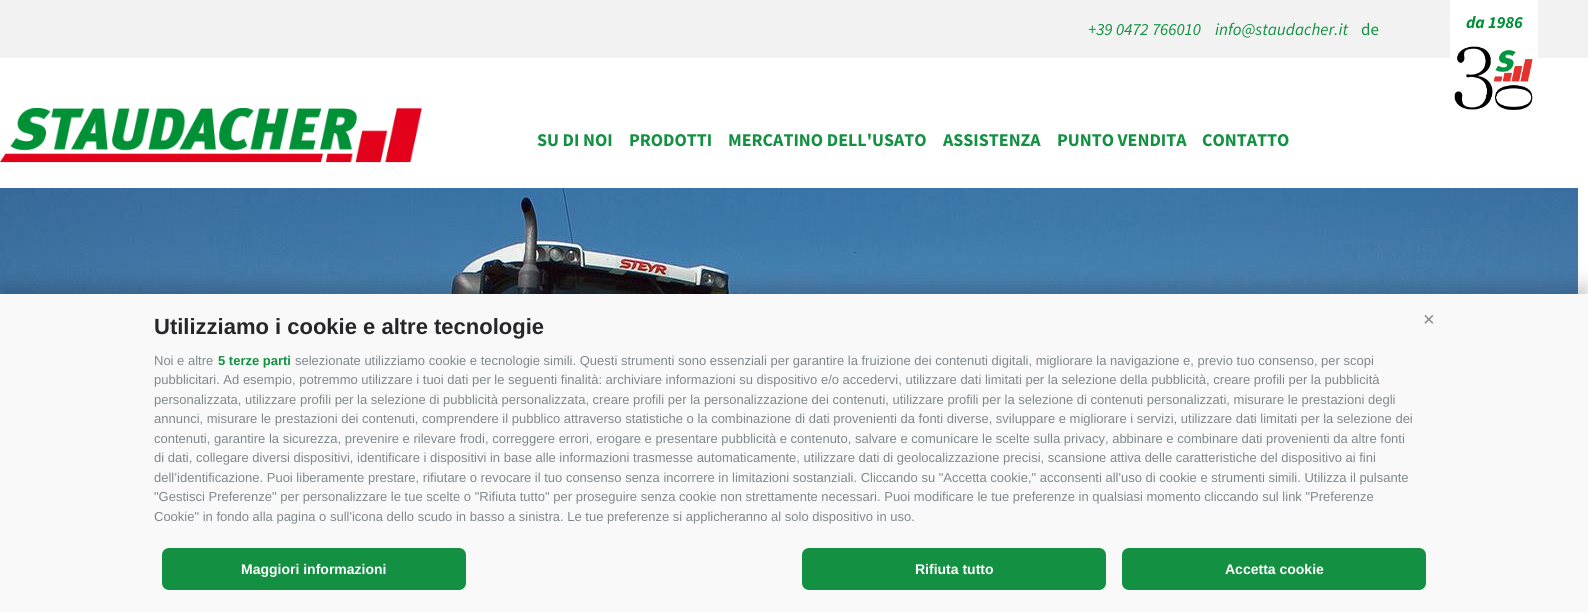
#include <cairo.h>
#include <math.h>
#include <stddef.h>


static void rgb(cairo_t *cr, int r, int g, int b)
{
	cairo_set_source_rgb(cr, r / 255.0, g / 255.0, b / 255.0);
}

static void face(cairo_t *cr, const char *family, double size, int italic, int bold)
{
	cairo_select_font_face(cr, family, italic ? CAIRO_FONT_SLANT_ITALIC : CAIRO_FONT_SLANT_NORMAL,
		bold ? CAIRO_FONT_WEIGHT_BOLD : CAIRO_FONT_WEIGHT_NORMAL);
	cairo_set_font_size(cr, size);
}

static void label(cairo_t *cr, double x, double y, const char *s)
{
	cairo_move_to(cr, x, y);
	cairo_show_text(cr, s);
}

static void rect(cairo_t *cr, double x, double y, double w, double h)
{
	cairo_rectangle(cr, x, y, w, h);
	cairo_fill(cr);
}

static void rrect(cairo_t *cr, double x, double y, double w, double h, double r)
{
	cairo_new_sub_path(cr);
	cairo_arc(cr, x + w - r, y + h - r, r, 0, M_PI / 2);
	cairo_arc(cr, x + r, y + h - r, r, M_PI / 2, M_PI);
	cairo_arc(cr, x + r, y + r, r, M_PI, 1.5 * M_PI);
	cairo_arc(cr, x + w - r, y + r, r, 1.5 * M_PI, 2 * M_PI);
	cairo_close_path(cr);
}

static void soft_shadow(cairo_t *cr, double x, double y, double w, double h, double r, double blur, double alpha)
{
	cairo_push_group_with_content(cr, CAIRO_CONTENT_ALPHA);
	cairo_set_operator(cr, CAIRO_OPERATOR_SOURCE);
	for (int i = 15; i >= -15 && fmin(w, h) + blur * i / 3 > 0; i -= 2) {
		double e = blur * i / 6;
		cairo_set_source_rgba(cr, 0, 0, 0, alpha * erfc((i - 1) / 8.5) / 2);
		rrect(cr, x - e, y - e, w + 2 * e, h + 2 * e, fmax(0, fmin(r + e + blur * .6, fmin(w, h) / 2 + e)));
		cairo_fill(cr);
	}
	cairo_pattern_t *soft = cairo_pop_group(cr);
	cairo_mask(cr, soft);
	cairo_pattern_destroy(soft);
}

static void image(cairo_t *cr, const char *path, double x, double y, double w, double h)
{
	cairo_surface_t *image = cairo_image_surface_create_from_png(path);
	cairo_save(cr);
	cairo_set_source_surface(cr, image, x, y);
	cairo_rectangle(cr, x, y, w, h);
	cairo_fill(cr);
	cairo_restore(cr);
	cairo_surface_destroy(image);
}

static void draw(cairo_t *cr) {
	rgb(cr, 255, 255, 255);
	cairo_paint(cr);
	rgb(cr, 241, 242, 241);
	rect(cr, 0, 0, 1588, 58);
	face(cr, "Source Sans Pro", 17, 1, 0);
	rgb(cr, 20, 144, 66);
	label(cr, 1088, 35, "+39 0472 766010");
	label(cr, 1215, 35, "info@staudacher.it");
	face(cr, "Source Sans Pro", 17, 0, 0);
	label(cr, 1361, 35, "de");
	rgb(cr, 255, 255, 255);
	rect(cr, 1450, 0, 88, 58);
	face(cr, "Source Sans Pro", 17, 1, 1);
	rgb(cr, 0, 144, 55);
	label(cr, 1466, 28, "da 1986");
	image(cr, "image0.png", 1454, 46, 79, 64);
	image(cr, "image1.png", 0, 108, 422, 55);
	face(cr, "Source Sans Pro", 18, 0, 1);
	rgb(cr, 20, 144, 66);
	label(cr, 537, 146, "SU DI NOI");
	label(cr, 629, 146, "PRODOTTI");
	label(cr, 728, 146, "MERCATINO DELL'USATO");
	label(cr, 943, 146, "ASSISTENZA");
	label(cr, 1057, 146, "PUNTO VENDITA");
	label(cr, 1202, 146, "CONTATTO");
	image(cr, "image2.png", 0, 188, 1578, 106);
	rgb(cr, 0, 0, 0);
	soft_shadow(cr, 0, 286, 1588, 318, 0, 10, 0.2);
	rgb(cr, 249, 249, 249);
	rect(cr, 0, 294, 1588, 318);
	face(cr, "Liberation Sans", 22, 0, 1);
	rgb(cr, 38, 38, 40);
	label(cr, 154, 334, "Utilizziamo i cookie e altre tecnologie");
	face(cr, "Liberation Sans", 20, 0, 0);
	rgb(cr, 128, 136, 140);
	label(cr, 1423, 326, "×");
	face(cr, "Liberation Sans", 13, 0, 0);
	label(cr, 154, 365, "Noi e altre");
	face(cr, "Liberation Sans", 13, 0, 1);
	rgb(cr, 20, 144, 66);
	label(cr, 218, 365, "5 terze parti");
	face(cr, "Liberation Sans", 13, 0, 0);
	rgb(cr, 128, 136, 140);
	label(cr, 295, 365, "selezionate utilizziamo cookie e tecnologie simili. Questi strumenti sono essenziali per garantire la fruizione dei contenuti digitali, migliorare la navigazione e, previo tuo consenso, per scopi");
	label(cr, 154, 384, "pubblicitari. Ad esempio, potremmo utilizzare i tuoi dati per le seguenti finalità: archiviare informazioni su dispositivo e/o accedervi, utilizzare dati limitati per la selezione della pubblicità, creare profili per la pubblicità");
	label(cr, 154, 404, "personalizzata, utilizzare profili per la selezione di pubblicità personalizzata, creare profili per la personalizzazione dei contenuti, utilizzare profili per la selezione di contenuti personalizzati, misurare le prestazioni degli");
	label(cr, 154, 423, "annunci, misurare le prestazioni dei contenuti, comprendere il pubblico attraverso statistiche o la combinazione di dati provenienti da fonti diverse, sviluppare e migliorare i servizi, utilizzare dati limitati per la selezione dei");
	label(cr, 154, 443, "contenuti, garantire la sicurezza, prevenire e rilevare frodi, correggere errori, erogare e presentare pubblicità e contenuto, salvare e comunicare le scelte sulla privacy, abbinare e combinare dati provenienti da altre fonti");
	label(cr, 154, 462, "di dati, collegare diversi dispositivi, identificare i dispositivi in base alle informazioni trasmesse automaticamente, utilizzare dati di geolocalizzazione precisi, scansione attiva delle caratteristiche del dispositivo ai fini");
	label(cr, 154, 482, "dell’identificazione. Puoi liberamente prestare, rifiutare o revocare il tuo consenso senza incorrere in limitazioni sostanziali. Cliccando su \"Accetta cookie,\" acconsenti all'uso di cookie e strumenti simili. Utilizza il pulsante");
	label(cr, 154, 501, "\"Gestisci Preferenze\" per personalizzare le tue scelte o \"Rifiuta tutto\" per proseguire senza cookie non strettamente necessari. Puoi modificare le tue preferenze in qualsiasi momento cliccando sul link \"Preferenze");
	label(cr, 154, 521, "Cookie\" in fondo alla pagina o sull'icona dello scudo in basso a sinistra. Le tue preferenze si applicheranno al solo dispositivo in uso.");
	rgb(cr, 20, 144, 66);
	rrect(cr, 162, 548, 304, 42, 7);
	cairo_fill(cr);
	face(cr, "Liberation Sans", 14, 0, 1);
	rgb(cr, 255, 255, 255);
	label(cr, 241, 574, "Maggiori informazioni");
	rgb(cr, 20, 144, 66);
	rrect(cr, 802, 548, 304, 42, 7);
	cairo_fill(cr);
	rgb(cr, 255, 255, 255);
	label(cr, 915, 574, "Rifiuta tutto");
	rgb(cr, 20, 144, 66);
	rrect(cr, 1122, 548, 304, 42, 7);
	cairo_fill(cr);
	rgb(cr, 255, 255, 255);
	label(cr, 1225, 574, "Accetta cookie");
}

int main(void) {
	cairo_surface_t *surface = cairo_image_surface_create(CAIRO_FORMAT_RGB24, 1588, 612);
	cairo_t *cr = cairo_create(surface);
	cairo_font_options_t *options = cairo_font_options_create();
	cairo_font_options_set_hint_metrics(options, CAIRO_HINT_METRICS_OFF);
	cairo_font_options_set_hint_style(options, CAIRO_HINT_STYLE_NONE);
	cairo_set_font_options(cr, options);
	cairo_set_miter_limit(cr, 4);
	draw(cr);
	cairo_surface_write_to_png(surface, "render.png");
	cairo_font_options_destroy(options);
	cairo_destroy(cr);
	cairo_surface_destroy(surface);
	return 0;
}
